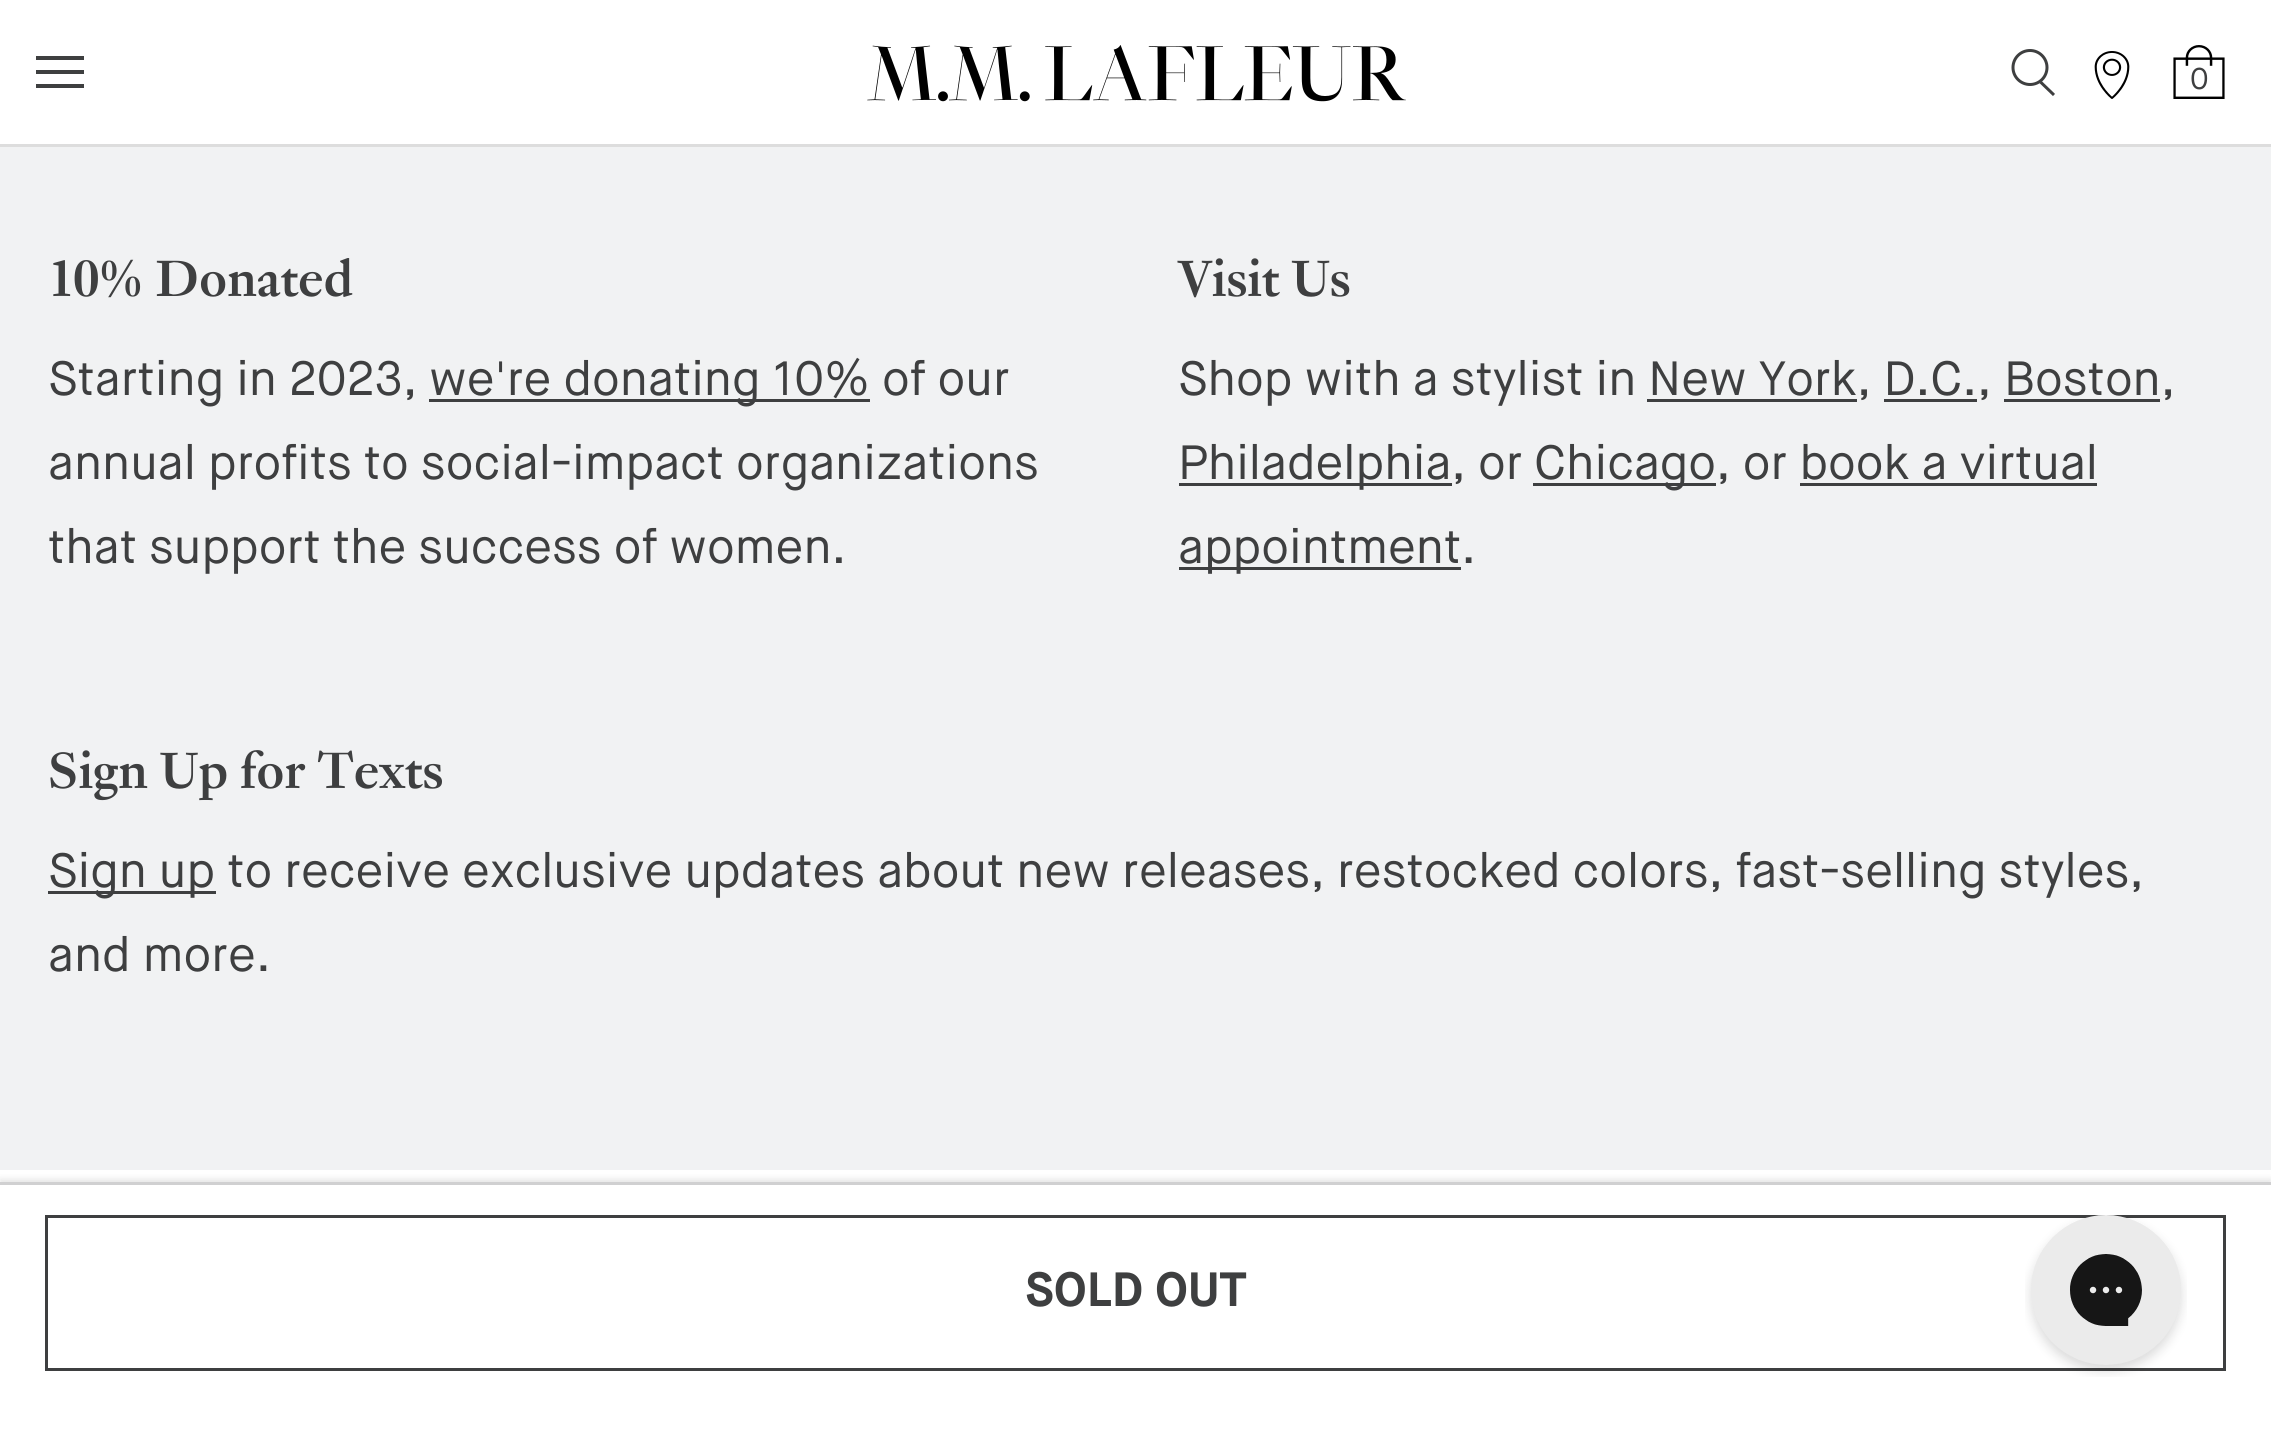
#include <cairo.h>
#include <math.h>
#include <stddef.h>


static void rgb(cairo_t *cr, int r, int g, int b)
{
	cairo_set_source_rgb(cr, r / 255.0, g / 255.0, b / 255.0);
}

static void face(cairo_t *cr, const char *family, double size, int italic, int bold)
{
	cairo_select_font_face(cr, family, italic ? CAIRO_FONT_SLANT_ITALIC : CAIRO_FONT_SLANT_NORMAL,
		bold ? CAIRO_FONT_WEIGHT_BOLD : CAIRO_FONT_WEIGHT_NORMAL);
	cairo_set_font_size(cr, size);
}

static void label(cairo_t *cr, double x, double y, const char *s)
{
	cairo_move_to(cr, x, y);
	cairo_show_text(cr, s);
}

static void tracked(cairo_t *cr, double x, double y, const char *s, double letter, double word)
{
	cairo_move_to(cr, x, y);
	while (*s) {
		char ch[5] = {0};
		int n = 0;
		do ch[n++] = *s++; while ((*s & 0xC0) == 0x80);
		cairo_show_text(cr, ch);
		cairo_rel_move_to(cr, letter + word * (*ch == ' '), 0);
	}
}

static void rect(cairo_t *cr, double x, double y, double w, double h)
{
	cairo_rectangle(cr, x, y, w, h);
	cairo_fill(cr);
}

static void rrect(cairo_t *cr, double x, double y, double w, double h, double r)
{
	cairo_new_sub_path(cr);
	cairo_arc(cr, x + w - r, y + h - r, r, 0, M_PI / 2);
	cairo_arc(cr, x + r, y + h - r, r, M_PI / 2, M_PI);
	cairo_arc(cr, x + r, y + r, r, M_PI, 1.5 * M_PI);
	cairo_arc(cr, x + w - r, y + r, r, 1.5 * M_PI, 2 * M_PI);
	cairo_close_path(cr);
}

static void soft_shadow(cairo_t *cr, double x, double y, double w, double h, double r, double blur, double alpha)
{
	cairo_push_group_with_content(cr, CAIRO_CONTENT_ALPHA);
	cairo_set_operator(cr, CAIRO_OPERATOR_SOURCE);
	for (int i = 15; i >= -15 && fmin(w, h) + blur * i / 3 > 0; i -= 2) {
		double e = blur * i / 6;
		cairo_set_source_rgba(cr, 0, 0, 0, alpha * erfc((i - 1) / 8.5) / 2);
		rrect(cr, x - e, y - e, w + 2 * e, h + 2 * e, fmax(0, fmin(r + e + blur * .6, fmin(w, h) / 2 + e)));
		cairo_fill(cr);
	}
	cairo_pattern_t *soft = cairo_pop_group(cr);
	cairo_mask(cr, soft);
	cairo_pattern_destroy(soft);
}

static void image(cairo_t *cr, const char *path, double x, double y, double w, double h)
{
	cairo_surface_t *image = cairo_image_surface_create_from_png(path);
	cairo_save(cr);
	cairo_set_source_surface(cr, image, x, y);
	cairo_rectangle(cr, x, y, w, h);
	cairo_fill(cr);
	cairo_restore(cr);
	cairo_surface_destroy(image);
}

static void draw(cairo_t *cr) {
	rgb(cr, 255, 255, 255);
	cairo_paint(cr);
	rgb(cr, 221, 221, 221);
	rect(cr, 0, 144, 2271, 3);
	rgb(cr, 62, 63, 64);
	cairo_new_path(cr);
	cairo_move_to(cr, 36, 88);
	cairo_line_to(cr, 36, 84);
	cairo_line_to(cr, 84, 84);
	cairo_line_to(cr, 84, 88);
	cairo_close_path(cr);
	cairo_move_to(cr, 36, 70);
	cairo_line_to(cr, 84, 70);
	cairo_line_to(cr, 84, 74);
	cairo_line_to(cr, 36, 74);
	cairo_close_path(cr);
	cairo_move_to(cr, 36, 56);
	cairo_line_to(cr, 84, 56);
	cairo_line_to(cr, 84, 60);
	cairo_line_to(cr, 36, 60);
	cairo_close_path(cr);
	cairo_fill(cr);
	image(cr, "image0.png", 867, 45, 539, 57);
	cairo_arc(cr, 2030, 67.5, 17, 0, 2 * M_PI);
	cairo_set_line_width(cr, 3);
	cairo_stroke(cr);
	cairo_new_path(cr);
	cairo_move_to(cr, 2040.5, 82);
	cairo_line_to(cr, 2054, 95);
	cairo_stroke(cr);
	image(cr, "image1.png", 2094, 51, 36, 48);
	image(cr, "image2.png", 2173, 45, 52, 54);
	face(cr, "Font", 30, 0, 0);
	tracked(cr, 2190, 89, "0", -3, 0);
	rgb(cr, 241, 242, 243);
	rect(cr, 0, 147, 2271, 1023);
	face(cr, "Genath", 55.75, 0, 1);
	rgb(cr, 62, 63, 64);
	label(cr, 48, 296, "10% Donated");
	face(cr, "Font", 48, 0, 0);
	label(cr, 48, 395, "Starting in 2023,");
	rect(cr, 429, 399, 441, 3);
	label(cr, 429, 395, "we're donating 10% of our");
	label(cr, 48, 479, "annual profits to social-impact organizations");
	label(cr, 48, 563, "that support the success of women.");
	face(cr, "Genath", 55.75, 0, 1);
	label(cr, 1178, 296, "Visit Us");
	face(cr, "Font", 48, 0, 0);
	label(cr, 1178, 395, "Shop with a stylist in New York, D.C., Boston,");
	rect(cr, 1647, 399, 210, 3);
	rect(cr, 1884, 399, 93, 3);
	rect(cr, 2004, 399, 156, 3);
	rect(cr, 1179, 483, 273, 3);
	label(cr, 1178, 479, "Philadelphia, or");
	rect(cr, 1533, 483, 183, 3);
	label(cr, 1534, 479, "Chicago, or book a virtual");
	rect(cr, 1179, 567, 282, 3);
	label(cr, 1178, 563, "appointment.");
	rect(cr, 1800, 483, 297, 3);
	face(cr, "Genath", 55.75, 0, 1);
	label(cr, 48, 788, "Sign Up for Texts");
	rect(cr, 48, 891, 168, 3);
	face(cr, "Font", 48, 0, 0);
	label(cr, 48, 887, "Sign up to receive exclusive updates about new releases, restocked colors, fast-selling styles,");
	label(cr, 48, 971, "and more.");
	rgb(cr, 0, 0, 0);
	soft_shadow(cr, 0, 1179, 2271, 264, 0, 3, 0.1);
	rgb(cr, 255, 255, 255);
	rect(cr, 0, 1185, 2271, 261);
	rgb(cr, 208, 208, 209);
	rect(cr, 0, 1182, 2271, 3);
	cairo_rectangle(cr, 46.5, 1216.5, 2178, 153);
	rgb(cr, 62, 63, 64);
	cairo_stroke(cr);
	face(cr, "Font", 48, 0, 1);
	label(cr, 1025, 1306, "SOLD OUT");
	image(cr, "image3.png", 2025, 1215, 162, 162);
}

int main(void) {
	cairo_surface_t *surface = cairo_image_surface_create(CAIRO_FORMAT_RGB24, 2271, 1446);
	cairo_t *cr = cairo_create(surface);
	cairo_font_options_t *options = cairo_font_options_create();
	cairo_font_options_set_hint_metrics(options, CAIRO_HINT_METRICS_OFF);
	cairo_font_options_set_hint_style(options, CAIRO_HINT_STYLE_NONE);
	cairo_set_font_options(cr, options);
	cairo_set_miter_limit(cr, 4);
	draw(cr);
	cairo_surface_write_to_png(surface, "render.png");
	cairo_font_options_destroy(options);
	cairo_destroy(cr);
	cairo_surface_destroy(surface);
	return 0;
}
